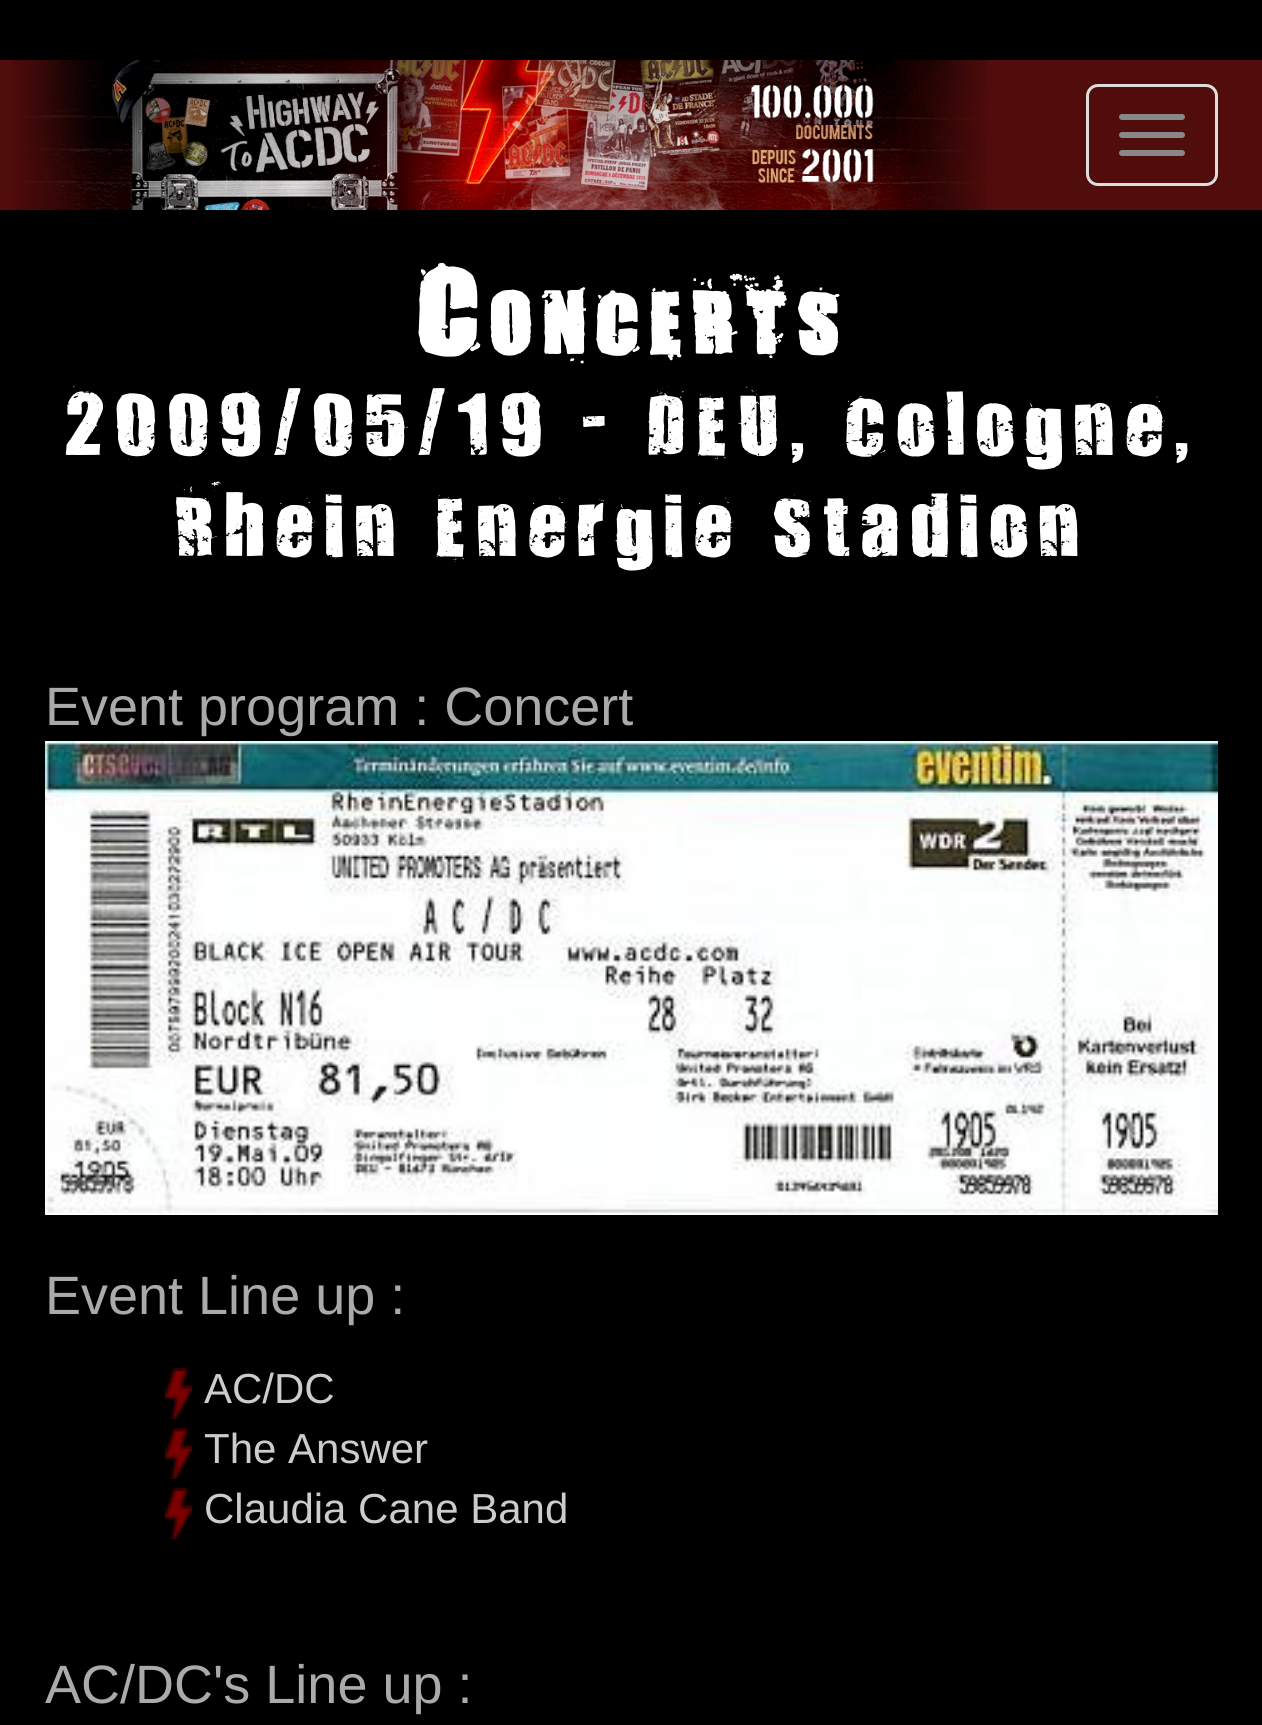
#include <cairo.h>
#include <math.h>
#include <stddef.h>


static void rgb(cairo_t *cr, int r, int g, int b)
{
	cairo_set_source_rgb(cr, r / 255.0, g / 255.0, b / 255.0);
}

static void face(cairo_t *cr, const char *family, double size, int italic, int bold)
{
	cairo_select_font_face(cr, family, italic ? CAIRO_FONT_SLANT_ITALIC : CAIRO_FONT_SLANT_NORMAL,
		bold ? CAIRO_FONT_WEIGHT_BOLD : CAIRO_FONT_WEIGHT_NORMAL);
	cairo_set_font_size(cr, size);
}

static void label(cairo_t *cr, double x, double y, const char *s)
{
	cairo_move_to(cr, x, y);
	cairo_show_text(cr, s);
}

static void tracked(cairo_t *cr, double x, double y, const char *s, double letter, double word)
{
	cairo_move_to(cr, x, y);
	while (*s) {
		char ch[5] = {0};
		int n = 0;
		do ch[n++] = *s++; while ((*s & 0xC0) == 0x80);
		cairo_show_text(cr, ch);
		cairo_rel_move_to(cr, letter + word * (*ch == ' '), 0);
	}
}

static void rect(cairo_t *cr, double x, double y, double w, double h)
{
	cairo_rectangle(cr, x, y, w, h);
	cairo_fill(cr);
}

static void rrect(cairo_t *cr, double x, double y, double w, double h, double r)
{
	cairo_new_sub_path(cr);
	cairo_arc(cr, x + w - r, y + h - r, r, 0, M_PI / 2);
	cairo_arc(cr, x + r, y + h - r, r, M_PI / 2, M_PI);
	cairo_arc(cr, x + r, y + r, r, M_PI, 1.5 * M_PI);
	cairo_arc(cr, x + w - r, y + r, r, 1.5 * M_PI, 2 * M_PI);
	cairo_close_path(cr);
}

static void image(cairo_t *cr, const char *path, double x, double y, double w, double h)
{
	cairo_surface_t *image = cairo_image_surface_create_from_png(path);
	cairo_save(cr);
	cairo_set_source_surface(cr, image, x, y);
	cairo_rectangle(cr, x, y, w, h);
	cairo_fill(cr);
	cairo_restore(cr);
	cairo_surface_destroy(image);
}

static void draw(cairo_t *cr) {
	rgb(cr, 0, 0, 0);
	cairo_paint(cr);
	rgb(cr, 81, 13, 12);
	rect(cr, 0, 60, 1262, 150);
	image(cr, "image0.png", 12, 60, 975, 150);
	rrect(cr, 1087.5, 85.5, 129, 99, 10.5);
	rgb(cr, 221, 221, 221);
	cairo_set_line_width(cr, 3);
	cairo_stroke(cr);
	rgb(cr, 136, 136, 136);
	rrect(cr, 1119, 114, 66, 6, 3);
	cairo_fill(cr);
	rrect(cr, 1119, 132, 66, 6, 3);
	cairo_fill(cr);
	rrect(cr, 1119, 150, 66, 6, 3);
	cairo_fill(cr);
	face(cr, "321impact", 108, 0, 1);
	rgb(cr, 255, 255, 255);
	tracked(cr, 416, 354, "C", 9, 0);
	face(cr, "321impact", 75.5, 0, 1);
	tracked(cr, 488, 354, "ONCERTS", 9, 0);
	face(cr, "321impact", 72, 0, 0);
	tracked(cr, 63, 455, "2009/05/19 - DEU, Cologne,", 9, 0);
	tracked(cr, 174, 556, "Rhein Energie Stadion", 9, 0);
	face(cr, "Liberation Sans", 54, 0, 0);
	rgb(cr, 170, 170, 170);
	label(cr, 45, 725, "Event program : Concert");
	image(cr, "image1.png", 45, 741, 1173, 474);
	label(cr, 45, 1314, "Event Line up :");
	image(cr, "image2.png", 165, 1368, 27, 51);
	face(cr, "Liberation Sans", 42, 0, 0);
	rgb(cr, 204, 204, 204);
	label(cr, 204, 1403, "AC/DC");
	image(cr, "image2.png", 165, 1428, 27, 51);
	label(cr, 204, 1463, "The Answer");
	image(cr, "image2.png", 165, 1488, 27, 51);
	label(cr, 204, 1523, "Claudia Cane Band");
	face(cr, "Liberation Sans", 54, 0, 0);
	rgb(cr, 170, 170, 170);
	label(cr, 45, 1703, "AC/DC's Line up :");
}

int main(void) {
	cairo_surface_t *surface = cairo_image_surface_create(CAIRO_FORMAT_RGB24, 1262, 1725);
	cairo_t *cr = cairo_create(surface);
	cairo_font_options_t *options = cairo_font_options_create();
	cairo_font_options_set_hint_metrics(options, CAIRO_HINT_METRICS_OFF);
	cairo_font_options_set_hint_style(options, CAIRO_HINT_STYLE_NONE);
	cairo_set_font_options(cr, options);
	cairo_set_miter_limit(cr, 4);
	draw(cr);
	cairo_surface_write_to_png(surface, "render.png");
	cairo_font_options_destroy(options);
	cairo_destroy(cr);
	cairo_surface_destroy(surface);
	return 0;
}
